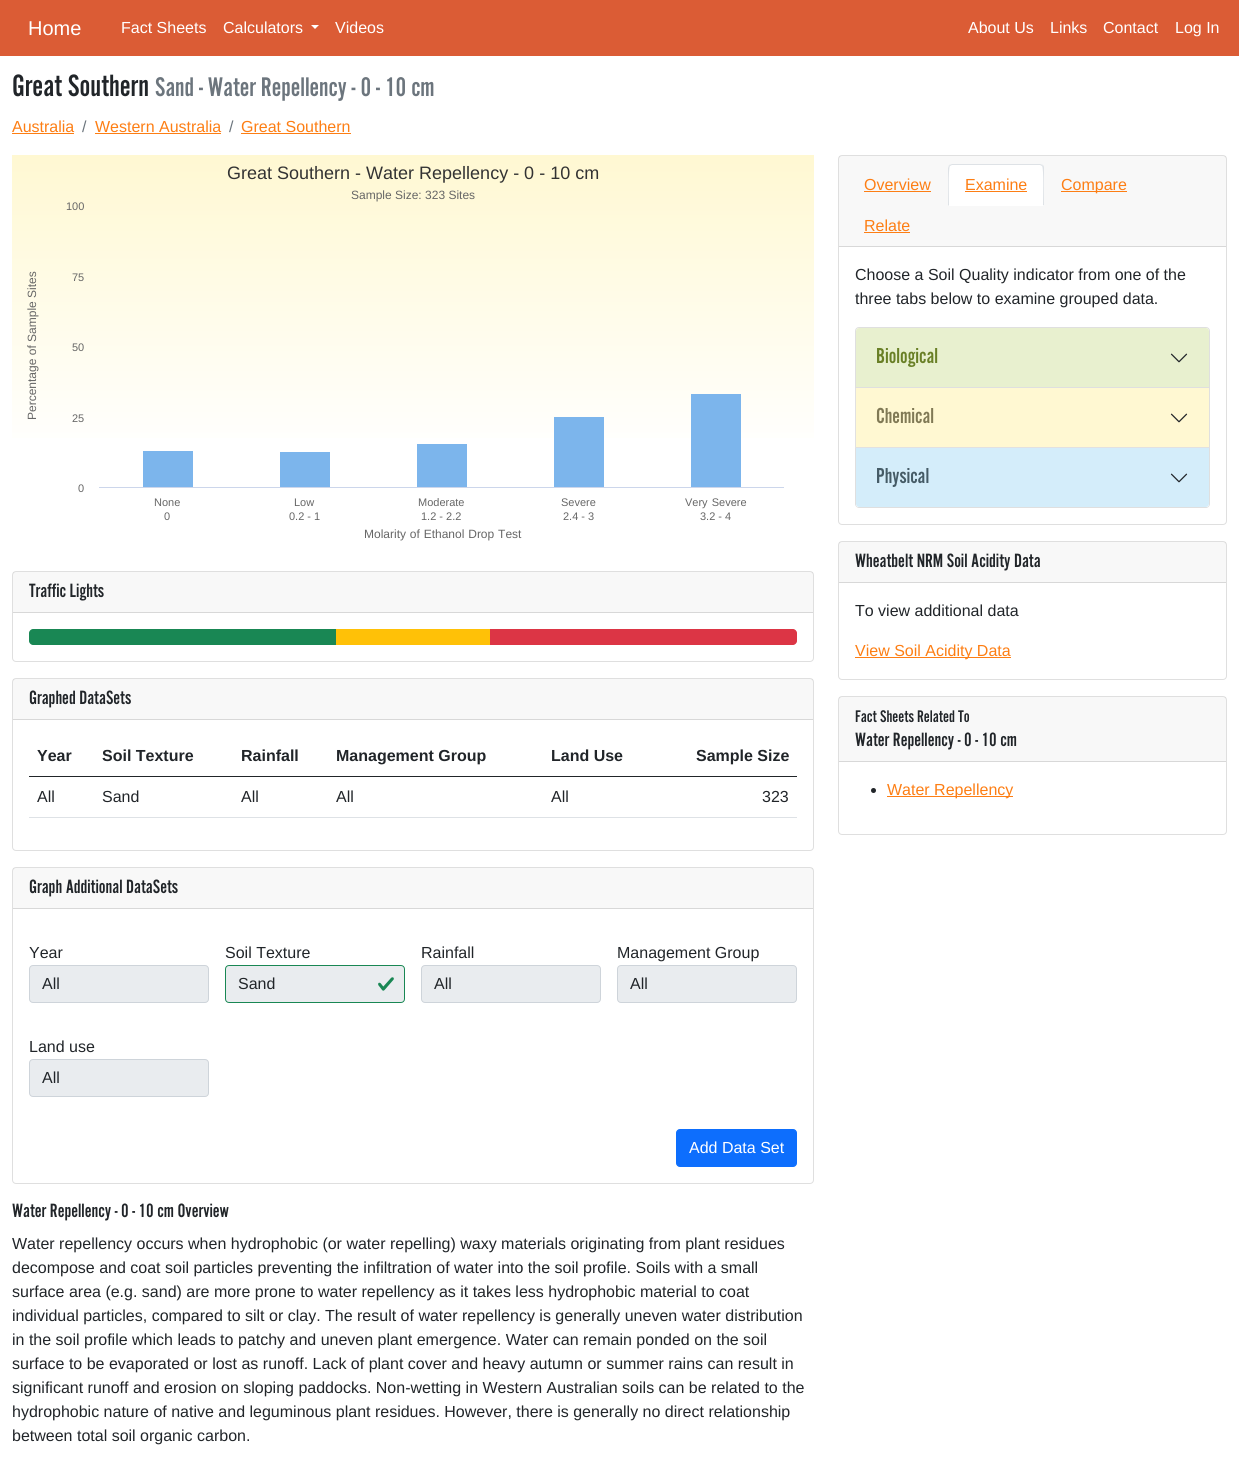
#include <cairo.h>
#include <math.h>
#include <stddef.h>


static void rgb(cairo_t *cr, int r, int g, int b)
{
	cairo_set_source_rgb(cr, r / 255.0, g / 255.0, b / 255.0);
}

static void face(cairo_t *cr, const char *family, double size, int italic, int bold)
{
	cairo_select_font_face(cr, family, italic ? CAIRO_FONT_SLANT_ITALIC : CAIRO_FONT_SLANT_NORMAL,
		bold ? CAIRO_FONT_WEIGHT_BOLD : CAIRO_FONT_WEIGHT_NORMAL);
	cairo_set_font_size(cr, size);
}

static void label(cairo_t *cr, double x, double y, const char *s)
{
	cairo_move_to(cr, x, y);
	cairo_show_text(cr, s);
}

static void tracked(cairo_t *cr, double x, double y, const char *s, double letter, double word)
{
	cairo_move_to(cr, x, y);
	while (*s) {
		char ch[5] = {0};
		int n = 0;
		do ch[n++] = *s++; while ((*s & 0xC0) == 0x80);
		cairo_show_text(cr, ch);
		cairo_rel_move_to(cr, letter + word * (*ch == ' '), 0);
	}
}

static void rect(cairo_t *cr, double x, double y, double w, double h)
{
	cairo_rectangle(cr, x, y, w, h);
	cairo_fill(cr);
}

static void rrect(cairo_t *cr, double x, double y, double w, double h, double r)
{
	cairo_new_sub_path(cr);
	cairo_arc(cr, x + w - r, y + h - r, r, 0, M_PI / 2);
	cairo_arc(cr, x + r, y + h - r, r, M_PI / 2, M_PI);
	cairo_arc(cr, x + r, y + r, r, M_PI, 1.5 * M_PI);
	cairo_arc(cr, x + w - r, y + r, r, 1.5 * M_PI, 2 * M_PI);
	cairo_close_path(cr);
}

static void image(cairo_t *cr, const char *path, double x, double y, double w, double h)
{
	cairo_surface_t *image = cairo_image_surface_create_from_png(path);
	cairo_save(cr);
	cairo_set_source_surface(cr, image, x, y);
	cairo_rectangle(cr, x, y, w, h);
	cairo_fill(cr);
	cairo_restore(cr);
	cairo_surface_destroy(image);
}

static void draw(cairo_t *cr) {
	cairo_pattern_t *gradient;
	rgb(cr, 255, 255, 255);
	cairo_paint(cr);
	rgb(cr, 219, 92, 53);
	rect(cr, 0, 0, 1239, 56);
	face(cr, "Liberation Sans", 20, 0, 0);
	rgb(cr, 255, 255, 255);
	label(cr, 28, 35, "Home");
	face(cr, "Liberation Sans", 16, 0, 0);
	label(cr, 121, 33, "Fact Sheets");
	label(cr, 223, 33, "Calculators");
	cairo_new_path(cr);
	cairo_move_to(cr, 311, 25);
	cairo_line_to(cr, 319, 25);
	cairo_line_to(cr, 315, 29);
	cairo_close_path(cr);
	cairo_fill(cr);
	label(cr, 335, 33, "Videos");
	label(cr, 968, 33, "About Us");
	label(cr, 1050, 33, "Links");
	label(cr, 1103, 33, "Contact");
	label(cr, 1175, 33, "Log In");
	face(cr, "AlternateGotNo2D", 32, 0, 0);
	rgb(cr, 33, 37, 41);
	label(cr, 12, 96, "Great Southern");
	face(cr, "AlternateGotNo2D", 28, 0, 0);
	rgb(cr, 108, 117, 125);
	label(cr, 155, 96, "Sand - Water Repellency - 0 - 10 cm");
	face(cr, "Liberation Sans", 16, 0, 0);
	rgb(cr, 253, 126, 20);
	label(cr, 12, 132, "Australia");
	rect(cr, 12, 133, 62, 1);
	rgb(cr, 108, 117, 125);
	label(cr, 82, 132, "/");
	rgb(cr, 253, 126, 20);
	label(cr, 95, 132, "Western Australia");
	rect(cr, 95, 133, 126, 1);
	rgb(cr, 108, 117, 125);
	label(cr, 229, 132, "/");
	rgb(cr, 253, 126, 20);
	label(cr, 241, 132, "Great Southern");
	rect(cr, 241, 133, 110, 1);
	gradient = cairo_pattern_create_linear(12, 155, 12, 455);
	cairo_pattern_add_color_stop_rgba(gradient, 0, 1, 0.973, 0.824, 1);
	cairo_pattern_add_color_stop_rgba(gradient, 1, 1, 1, 1, 1);
	cairo_set_source(cr, gradient);
	cairo_pattern_destroy(gradient);
	rect(cr, 12, 155, 802, 283);
	face(cr, "Liberation Sans", 18, 0, 0);
	rgb(cr, 51, 51, 51);
	label(cr, 227, 179, "Great Southern - Water Repellency - 0 - 10 cm");
	face(cr, "Liberation Sans", 12, 0, 0);
	rgb(cr, 102, 102, 102);
	label(cr, 351, 199, "Sample Size: 323 Sites");
	face(cr, "Liberation Sans", 11, 0, 0);
	label(cr, 66, 210, "100");
	face(cr, "Liberation Sans", 12, 0, 0);
	cairo_save(cr);
	cairo_translate(cr, 36, 420);
	cairo_rotate(cr, -90 * M_PI / 180);
	label(cr, 0, 0, "Percentage of Sample Sites");
	cairo_restore(cr);
	face(cr, "Liberation Sans", 11, 0, 0);
	label(cr, 72, 281, "75");
	label(cr, 72, 351, "50");
	label(cr, 72, 422, "25");
	label(cr, 78, 492, "0");
	rgb(cr, 204, 214, 235);
	rect(cr, 99, 487, 685, 1);
	rgb(cr, 102, 102, 102);
	label(cr, 154, 506, "None");
	rgb(cr, 124, 181, 236);
	rect(cr, 143, 451, 50, 36);
	rgb(cr, 102, 102, 102);
	label(cr, 294, 506, "Low");
	rgb(cr, 124, 181, 236);
	rect(cr, 280, 452, 50, 35);
	rgb(cr, 102, 102, 102);
	label(cr, 418, 506, "Moderate");
	rgb(cr, 124, 181, 236);
	rect(cr, 417, 444, 50, 43);
	rgb(cr, 102, 102, 102);
	label(cr, 561, 506, "Severe");
	rgb(cr, 124, 181, 236);
	rect(cr, 554, 417, 50, 70);
	rgb(cr, 102, 102, 102);
	tracked(cr, 685, 506, "Very Severe", 0, 1);
	rgb(cr, 124, 181, 236);
	rect(cr, 691, 394, 50, 93);
	rgb(cr, 102, 102, 102);
	label(cr, 164, 520, "0");
	label(cr, 289, 520, "0.2 - 1");
	label(cr, 421, 520, "1.2 - 2.2");
	label(cr, 563, 520, "2.4 - 3");
	label(cr, 700, 520, "3.2 - 4");
	face(cr, "Liberation Sans", 12, 0, 0);
	tracked(cr, 364, 538, "Molarity of Ethanol Drop Test", 0, 0.5);
	rrect(cr, 12.5, 571.5, 801, 90, 3.5);
	rgb(cr, 223, 223, 223);
	cairo_set_line_width(cr, 1);
	cairo_stroke(cr);
	cairo_set_source_rgba(cr, 0, 0, 0, 0.03);
	rect(cr, 13, 572, 800, 40);
	rgb(cr, 216, 216, 216);
	rect(cr, 13, 612, 800, 1);
	face(cr, "AlternateGotNo2D", 20, 0, 0);
	rgb(cr, 33, 37, 41);
	label(cr, 29, 597, "Traffic Lights");
	rgb(cr, 25, 135, 84);
	cairo_new_path(cr);
	cairo_move_to(cr, 33, 629);
	cairo_line_to(cr, 336, 629);
	cairo_line_to(cr, 336, 645);
	cairo_line_to(cr, 33, 645);
	cairo_curve_to(cr, 31, 645, 29, 643, 29, 641);
	cairo_line_to(cr, 29, 633);
	cairo_curve_to(cr, 29, 631, 31, 629, 33, 629);
	cairo_close_path(cr);
	cairo_fill(cr);
	rgb(cr, 255, 193, 7);
	rect(cr, 336, 629, 154, 16);
	rgb(cr, 220, 53, 69);
	cairo_new_path(cr);
	cairo_move_to(cr, 490, 629);
	cairo_line_to(cr, 793, 629);
	cairo_curve_to(cr, 795, 629, 797, 631, 797, 633);
	cairo_line_to(cr, 797, 641);
	cairo_curve_to(cr, 797, 643, 795, 645, 793, 645);
	cairo_line_to(cr, 490, 645);
	cairo_close_path(cr);
	cairo_fill(cr);
	rrect(cr, 12.5, 678.5, 801, 172, 3.5);
	rgb(cr, 223, 223, 223);
	cairo_stroke(cr);
	cairo_set_source_rgba(cr, 0, 0, 0, 0.03);
	rect(cr, 13, 679, 800, 40);
	rgb(cr, 216, 216, 216);
	rect(cr, 13, 719, 800, 1);
	rgb(cr, 33, 37, 41);
	label(cr, 29, 704, "Graphed DataSets");
	face(cr, "Liberation Sans", 16, 0, 1);
	label(cr, 37, 761, "Year");
	label(cr, 102, 761, "Soil Texture");
	label(cr, 241, 761, "Rainfall");
	label(cr, 336, 761, "Management Group");
	label(cr, 551, 761, "Land Use");
	rect(cr, 29, 776, 768, 1);
	label(cr, 696, 761, "Sample Size");
	face(cr, "Liberation Sans", 16, 0, 0);
	label(cr, 37, 802, "All");
	label(cr, 102, 802, "Sand");
	label(cr, 241, 802, "All");
	label(cr, 336, 802, "All");
	label(cr, 551, 802, "All");
	rgb(cr, 222, 226, 230);
	rect(cr, 29, 817, 768, 1);
	rgb(cr, 33, 37, 41);
	label(cr, 762, 802, "323");
	rrect(cr, 12.5, 867.5, 801, 316, 3.5);
	rgb(cr, 223, 223, 223);
	cairo_stroke(cr);
	cairo_set_source_rgba(cr, 0, 0, 0, 0.03);
	rect(cr, 13, 868, 800, 40);
	rgb(cr, 216, 216, 216);
	rect(cr, 13, 908, 800, 1);
	face(cr, "AlternateGotNo2D", 20, 0, 0);
	rgb(cr, 33, 37, 41);
	label(cr, 29, 893, "Graph Additional DataSets");
	face(cr, "Liberation Sans", 16, 0, 0);
	label(cr, 29, 958, "Year");
	rgb(cr, 233, 236, 239);
	rrect(cr, 29.5, 965.5, 179, 37, 3.5);
	cairo_fill_preserve(cr);
	rgb(cr, 206, 212, 218);
	cairo_stroke(cr);
	rgb(cr, 33, 37, 41);
	label(cr, 42, 989, "All");
	label(cr, 225, 958, "Soil Texture");
	rgb(cr, 233, 236, 239);
	rrect(cr, 226, 966, 178, 36, 3);
	cairo_fill(cr);
	image(cr, "image0.png", 378, 977, 16, 14);
	rrect(cr, 225.5, 965.5, 179, 37, 3.5);
	rgb(cr, 25, 135, 84);
	cairo_stroke(cr);
	rgb(cr, 33, 37, 41);
	label(cr, 238, 989, "Sand");
	label(cr, 421, 958, "Rainfall");
	rgb(cr, 233, 236, 239);
	rrect(cr, 421.5, 965.5, 179, 37, 3.5);
	cairo_fill_preserve(cr);
	rgb(cr, 206, 212, 218);
	cairo_stroke(cr);
	rgb(cr, 33, 37, 41);
	label(cr, 434, 989, "All");
	label(cr, 617, 958, "Management Group");
	rgb(cr, 233, 236, 239);
	rrect(cr, 617.5, 965.5, 179, 37, 3.5);
	cairo_fill_preserve(cr);
	rgb(cr, 206, 212, 218);
	cairo_stroke(cr);
	rgb(cr, 33, 37, 41);
	label(cr, 630, 989, "All");
	label(cr, 29, 1052, "Land use");
	rgb(cr, 233, 236, 239);
	rrect(cr, 29.5, 1059.5, 179, 37, 3.5);
	cairo_fill_preserve(cr);
	rgb(cr, 206, 212, 218);
	cairo_stroke(cr);
	rgb(cr, 33, 37, 41);
	label(cr, 42, 1083, "All");
	rgb(cr, 13, 110, 253);
	rrect(cr, 676.5, 1129.5, 120, 37, 3.5);
	cairo_fill_preserve(cr);
	cairo_stroke(cr);
	rgb(cr, 255, 255, 255);
	label(cr, 689, 1153, "Add Data Set");
	face(cr, "AlternateGotNo2D", 20, 0, 0);
	rgb(cr, 33, 37, 41);
	label(cr, 12, 1217, "Water Repellency - 0 - 10 cm Overview");
	face(cr, "Liberation Sans", 16, 0, 0);
	label(cr, 12, 1249, "Water repellency occurs when hydrophobic (or water repelling) waxy materials originating from plant residues");
	label(cr, 12, 1273, "decompose and coat soil particles preventing the infiltration of water into the soil profile. Soils with a small");
	label(cr, 12, 1297, "surface area (e.g. sand) are more prone to water repellency as it takes less hydrophobic material to coat");
	label(cr, 12, 1321, "individual particles, compared to silt or clay. The result of water repellency is generally uneven water distribution");
	label(cr, 12, 1345, "in the soil profile which leads to patchy and uneven plant emergence. Water can remain ponded on the soil");
	label(cr, 12, 1369, "surface to be evaporated or lost as runoff. Lack of plant cover and heavy autumn or summer rains can result in");
	label(cr, 12, 1393, "significant runoff and erosion on sloping paddocks. Non-wetting in Western Australian soils can be related to the");
	label(cr, 12, 1417, "hydrophobic nature of native and leguminous plant residues. However, there is generally no direct relationship");
	label(cr, 12, 1441, "between total soil organic carbon.");
	rrect(cr, 838.5, 155.5, 388, 369, 3.5);
	rgb(cr, 223, 223, 223);
	cairo_stroke(cr);
	cairo_set_source_rgba(cr, 0, 0, 0, 0.03);
	rect(cr, 839, 156, 387, 90);
	rgb(cr, 216, 216, 216);
	rect(cr, 839, 246, 387, 1);
	rgb(cr, 253, 126, 20);
	label(cr, 864, 190, "Overview");
	rect(cr, 864, 191, 67, 1);
	rgb(cr, 255, 255, 255);
	cairo_new_path(cr);
	cairo_move_to(cr, 952, 164);
	cairo_line_to(cr, 1040, 164);
	cairo_curve_to(cr, 1042, 164, 1044, 166, 1044, 168);
	cairo_line_to(cr, 1044, 206);
	cairo_line_to(cr, 948, 206);
	cairo_line_to(cr, 948, 168);
	cairo_curve_to(cr, 948, 166, 950, 164, 952, 164);
	cairo_close_path(cr);
	cairo_fill(cr);
	rgb(cr, 222, 226, 230);
	cairo_new_path(cr);
	cairo_move_to(cr, 952, 164);
	cairo_line_to(cr, 949, 165);
	cairo_line_to(cr, 950, 166);
	cairo_line_to(cr, 952, 165);
	cairo_line_to(cr, 1040, 165);
	cairo_line_to(cr, 1042, 166);
	cairo_line_to(cr, 1043, 165);
	cairo_line_to(cr, 1040, 164);
	cairo_close_path(cr);
	cairo_fill(cr);
	cairo_new_path(cr);
	cairo_move_to(cr, 1044, 206);
	cairo_line_to(cr, 1044, 168);
	cairo_curve_to(cr, 1044, 167, 1044, 166, 1043, 165);
	cairo_line_to(cr, 1042, 166);
	cairo_curve_to(cr, 1044, 168, 1043, 200, 1043, 205);
	cairo_close_path(cr);
	cairo_fill(cr);
	rgb(cr, 255, 255, 255);
	cairo_new_path(cr);
	cairo_move_to(cr, 1044, 206);
	cairo_line_to(cr, 1043, 205);
	cairo_line_to(cr, 949, 205);
	cairo_line_to(cr, 948, 206);
	cairo_close_path(cr);
	cairo_fill(cr);
	rgb(cr, 222, 226, 230);
	cairo_new_path(cr);
	cairo_move_to(cr, 948, 206);
	cairo_line_to(cr, 949, 205);
	cairo_curve_to(cr, 949, 200, 948, 168, 950, 166);
	cairo_line_to(cr, 949, 165);
	cairo_line_to(cr, 948, 168);
	cairo_close_path(cr);
	cairo_fill(cr);
	rgb(cr, 253, 126, 20);
	label(cr, 965, 190, "Examine");
	rect(cr, 965, 191, 62, 1);
	rect(cr, 1061, 191, 66, 1);
	label(cr, 1061, 190, "Compare");
	label(cr, 864, 231, "Relate");
	rect(cr, 864, 232, 46, 1);
	rgb(cr, 33, 37, 41);
	label(cr, 855, 280, "Choose a Soil Quality indicator from one of the");
	label(cr, 855, 304, "three tabs below to examine grouped data.");
	cairo_new_path(cr);
	cairo_move_to(cr, 859, 327.5);
	cairo_line_to(cr, 1206, 327.5);
	cairo_curve_to(cr, 1208, 327.5, 1209.5, 329, 1209.5, 331);
	cairo_line_to(cr, 1209.5, 387.5);
	cairo_line_to(cr, 855.5, 387.5);
	cairo_line_to(cr, 855.5, 331);
	cairo_curve_to(cr, 855.5, 329, 857, 327.5, 859, 327.5);
	cairo_close_path(cr);
	rgb(cr, 223, 223, 223);
	cairo_stroke(cr);
	rgb(cr, 232, 240, 207);
	cairo_new_path(cr);
	cairo_move_to(cr, 859, 328);
	cairo_line_to(cr, 1206, 328);
	cairo_curve_to(cr, 1207.5, 328, 1209, 329.5, 1209, 331);
	cairo_line_to(cr, 1209, 387);
	cairo_line_to(cr, 856, 387);
	cairo_line_to(cr, 856, 331);
	cairo_curve_to(cr, 856, 329.5, 857.5, 328, 859, 328);
	cairo_close_path(cr);
	cairo_fill(cr);
	face(cr, "AlternateGotNo2D", 22.5, 0, 0);
	rgb(cr, 105, 127, 38);
	label(cr, 876, 363, "Biological");
	image(cr, "image1.png", 1170, 353, 18, 10);
	rgb(cr, 223, 223, 223);
	cairo_new_path(cr);
	cairo_move_to(cr, 1210, 388);
	cairo_line_to(cr, 1210, 448);
	cairo_line_to(cr, 1209, 447);
	cairo_line_to(cr, 1209, 388);
	cairo_close_path(cr);
	cairo_fill(cr);
	cairo_set_source_rgba(cr, 0, 0, 0, 0.12);
	cairo_new_path(cr);
	cairo_move_to(cr, 1210, 448);
	cairo_line_to(cr, 855, 448);
	cairo_line_to(cr, 856, 447);
	cairo_line_to(cr, 1209, 447);
	cairo_close_path(cr);
	cairo_fill(cr);
	cairo_new_path(cr);
	cairo_move_to(cr, 855, 448);
	cairo_line_to(cr, 855, 388);
	cairo_line_to(cr, 856, 388);
	cairo_line_to(cr, 856, 447);
	cairo_close_path(cr);
	cairo_fill(cr);
	rgb(cr, 255, 248, 210);
	rect(cr, 856, 388, 353, 59);
	rgb(cr, 128, 121, 85);
	label(cr, 876, 423, "Chemical");
	image(cr, "image2.png", 1170, 413, 18, 10);
	rgb(cr, 223, 223, 223);
	cairo_set_fill_rule(cr, CAIRO_FILL_RULE_EVEN_ODD);
	cairo_new_path(cr);
	cairo_move_to(cr, 855, 448);
	cairo_line_to(cr, 1210, 448);
	cairo_line_to(cr, 1210, 504);
	cairo_curve_to(cr, 1210, 506, 1208, 508, 1206, 508);
	cairo_line_to(cr, 859, 508);
	cairo_curve_to(cr, 857, 508, 855, 506, 855, 504);
	cairo_close_path(cr);
	cairo_move_to(cr, 856, 448);
	cairo_line_to(cr, 1209, 448);
	cairo_line_to(cr, 1209, 504);
	cairo_curve_to(cr, 1209, 506, 1208, 507, 1206, 507);
	cairo_line_to(cr, 859, 507);
	cairo_curve_to(cr, 857, 507, 856, 506, 856, 504);
	cairo_close_path(cr);
	cairo_fill(cr);
	rgb(cr, 212, 237, 250);
	cairo_new_path(cr);
	cairo_move_to(cr, 856, 448);
	cairo_line_to(cr, 1209, 448);
	cairo_line_to(cr, 1209, 504);
	cairo_curve_to(cr, 1209, 505.5, 1207.5, 507, 1206, 507);
	cairo_line_to(cr, 859, 507);
	cairo_curve_to(cr, 857.5, 507, 856, 505.5, 856, 504);
	cairo_close_path(cr);
	cairo_fill(cr);
	rgb(cr, 69, 91, 102);
	label(cr, 876, 483, "Physical");
	image(cr, "image3.png", 1170, 473, 18, 10);
	rrect(cr, 838.5, 541.5, 388, 138, 3.5);
	rgb(cr, 223, 223, 223);
	cairo_stroke(cr);
	cairo_set_source_rgba(cr, 0, 0, 0, 0.03);
	rect(cr, 839, 542, 387, 40);
	rgb(cr, 216, 216, 216);
	rect(cr, 839, 582, 387, 1);
	face(cr, "AlternateGotNo2D", 20, 0, 0);
	rgb(cr, 33, 37, 41);
	label(cr, 855, 567, "Wheatbelt NRM Soil Acidity Data");
	face(cr, "Liberation Sans", 16, 0, 0);
	label(cr, 855, 616, "To view additional data");
	rgb(cr, 253, 126, 20);
	rect(cr, 855, 657, 156, 1);
	label(cr, 855, 656, "View Soil Acidity Data");
	rrect(cr, 838.5, 696.5, 388, 138, 3.5);
	rgb(cr, 223, 223, 223);
	cairo_stroke(cr);
	cairo_set_source_rgba(cr, 0, 0, 0, 0.03);
	rect(cr, 839, 697, 387, 64);
	rgb(cr, 216, 216, 216);
	rect(cr, 839, 761, 387, 1);
	face(cr, "AlternateGotNo2D", 17.5, 0, 0);
	rgb(cr, 33, 37, 41);
	label(cr, 855, 722, "Fact Sheets Related To");
	face(cr, "AlternateGotNo2D", 20, 0, 0);
	label(cr, 855, 746, "Water Repellency - 0 - 10 cm");
	cairo_new_path(cr);
	cairo_arc(cr, 873.5, 790.5, 2.5, 0, 2 * M_PI);
	cairo_fill(cr);
	rgb(cr, 253, 126, 20);
	rect(cr, 887, 796, 126, 1);
	face(cr, "Liberation Sans", 16, 0, 0);
	label(cr, 887, 795, "Water Repellency");
}

int main(void) {
	cairo_surface_t *surface = cairo_image_surface_create(CAIRO_FORMAT_RGB24, 1239, 1476);
	cairo_t *cr = cairo_create(surface);
	cairo_font_options_t *options = cairo_font_options_create();
	cairo_font_options_set_hint_metrics(options, CAIRO_HINT_METRICS_OFF);
	cairo_font_options_set_hint_style(options, CAIRO_HINT_STYLE_NONE);
	cairo_set_font_options(cr, options);
	cairo_set_miter_limit(cr, 4);
	draw(cr);
	cairo_surface_write_to_png(surface, "render.png");
	cairo_font_options_destroy(options);
	cairo_destroy(cr);
	cairo_surface_destroy(surface);
	return 0;
}
